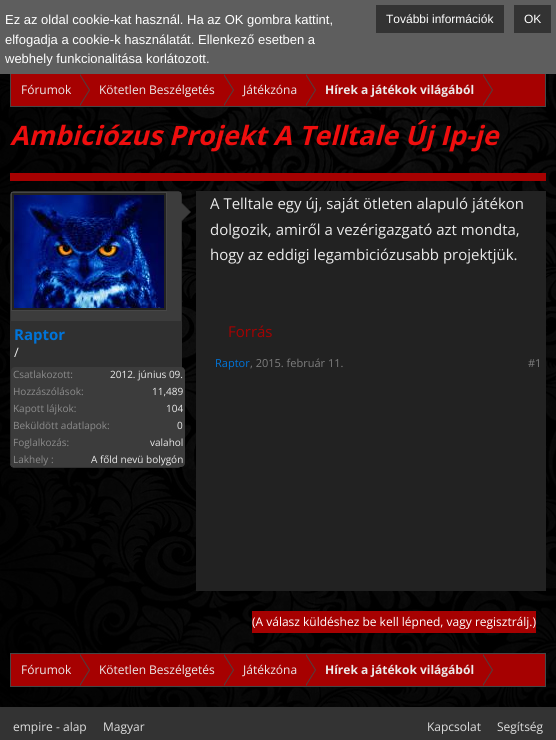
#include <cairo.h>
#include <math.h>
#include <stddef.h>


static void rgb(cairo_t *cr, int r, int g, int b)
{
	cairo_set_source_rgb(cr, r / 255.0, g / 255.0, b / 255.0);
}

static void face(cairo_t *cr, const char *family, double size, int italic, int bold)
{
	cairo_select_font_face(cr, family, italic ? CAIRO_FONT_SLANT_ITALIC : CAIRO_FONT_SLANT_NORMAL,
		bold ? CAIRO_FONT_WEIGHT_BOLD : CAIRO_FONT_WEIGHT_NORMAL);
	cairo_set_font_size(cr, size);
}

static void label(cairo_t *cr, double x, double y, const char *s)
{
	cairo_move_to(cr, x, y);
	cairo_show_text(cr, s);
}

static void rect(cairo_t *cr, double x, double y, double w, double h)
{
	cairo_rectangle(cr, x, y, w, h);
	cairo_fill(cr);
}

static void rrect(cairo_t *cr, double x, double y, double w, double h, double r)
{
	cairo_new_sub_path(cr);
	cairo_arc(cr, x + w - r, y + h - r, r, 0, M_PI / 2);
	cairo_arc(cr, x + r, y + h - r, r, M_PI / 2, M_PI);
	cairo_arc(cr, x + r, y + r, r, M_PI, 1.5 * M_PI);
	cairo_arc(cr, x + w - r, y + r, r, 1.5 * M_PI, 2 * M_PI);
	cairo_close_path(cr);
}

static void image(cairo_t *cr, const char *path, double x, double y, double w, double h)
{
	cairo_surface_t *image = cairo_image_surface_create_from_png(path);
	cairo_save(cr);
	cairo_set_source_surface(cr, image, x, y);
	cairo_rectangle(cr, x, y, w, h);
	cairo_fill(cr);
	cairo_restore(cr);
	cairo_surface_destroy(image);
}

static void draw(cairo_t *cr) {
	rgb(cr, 255, 255, 255);
	cairo_paint(cr);
	image(cr, "image0.png", 0, 74, 556, 633);
	cairo_set_source_rgba(cr, 0, 0, 0, 0.7);
	rect(cr, 0, 74, 556, 633);
	rgb(cr, 166, 1, 1);
	cairo_rectangle(cr, 10.5, 73.5, 535, 33);
	cairo_fill_preserve(cr);
	rgb(cr, 70, 70, 70);
	cairo_set_line_width(cr, 1);
	cairo_stroke(cr);
	rgb(cr, 94, 94, 94);
	rect(cr, 0, 0, 556, 74);
	face(cr, "Liberation Sans", 13, 0, 0);
	rgb(cr, 255, 255, 255);
	label(cr, 5, 24, "Ez az oldal cookie-kat használ. Ha az OK gombra kattint,");
	label(cr, 5, 44, "elfogadja a cookie-k használatát. Ellenkező esetben a");
	label(cr, 5, 63, "webhely funkcionalitása korlátozott.");
	rgb(cr, 51, 51, 51);
	rect(cr, 376, 5, 128, 28);
	face(cr, "Liberation Sans", 12, 0, 0);
	rgb(cr, 255, 255, 255);
	label(cr, 386, 23, "További információk");
	rgb(cr, 51, 51, 51);
	rect(cr, 514, 5, 37, 28);
	rgb(cr, 255, 255, 255);
	label(cr, 524, 23, "OK");
	rgb(cr, 51, 51, 51);
	rect(cr, 0, 707, 556, 33);
	face(cr, "Open Sans", 12, 0, 0);
	rgb(cr, 222, 222, 222);
	label(cr, 13, 731, "empire - alap");
	label(cr, 103, 731, "Magyar");
	label(cr, 427, 731, "Kapcsolat");
	label(cr, 497, 731, "Segítség");
	rgb(cr, 235, 235, 235);
	label(cr, 21, 94, "Fórumok");
	rgb(cr, 70, 70, 70);
	cairo_new_path(cr);
	cairo_move_to(cr, 80, 106);
	cairo_line_to(cr, 80, 74);
	cairo_line_to(cr, 90, 90);
	cairo_close_path(cr);
	cairo_fill(cr);
	rgb(cr, 166, 1, 1);
	cairo_new_path(cr);
	cairo_move_to(cr, 79, 106);
	cairo_line_to(cr, 79, 74);
	cairo_line_to(cr, 89, 90);
	cairo_close_path(cr);
	cairo_fill(cr);
	rgb(cr, 235, 235, 235);
	label(cr, 99, 94, "Kötetlen Beszélgetés");
	rgb(cr, 70, 70, 70);
	cairo_new_path(cr);
	cairo_move_to(cr, 224, 106);
	cairo_line_to(cr, 224, 74);
	cairo_line_to(cr, 234, 90);
	cairo_close_path(cr);
	cairo_fill(cr);
	rgb(cr, 166, 1, 1);
	cairo_new_path(cr);
	cairo_move_to(cr, 223, 106);
	cairo_line_to(cr, 223, 74);
	cairo_line_to(cr, 233, 90);
	cairo_close_path(cr);
	cairo_fill(cr);
	rgb(cr, 235, 235, 235);
	label(cr, 243, 94, "Játékzóna");
	rgb(cr, 70, 70, 70);
	cairo_new_path(cr);
	cairo_move_to(cr, 306, 106);
	cairo_line_to(cr, 306, 74);
	cairo_line_to(cr, 316, 90);
	cairo_close_path(cr);
	cairo_fill(cr);
	rgb(cr, 166, 1, 1);
	cairo_new_path(cr);
	cairo_move_to(cr, 305, 106);
	cairo_line_to(cr, 305, 74);
	cairo_line_to(cr, 315, 90);
	cairo_close_path(cr);
	cairo_fill(cr);
	face(cr, "Open Sans", 12, 0, 1);
	rgb(cr, 235, 235, 235);
	label(cr, 325, 94, "Hírek a játékok világából");
	rgb(cr, 70, 70, 70);
	cairo_new_path(cr);
	cairo_move_to(cr, 483, 106);
	cairo_line_to(cr, 483, 74);
	cairo_line_to(cr, 493, 90);
	cairo_close_path(cr);
	cairo_fill(cr);
	rgb(cr, 166, 1, 1);
	cairo_new_path(cr);
	cairo_move_to(cr, 482, 106);
	cairo_line_to(cr, 482, 74);
	cairo_line_to(cr, 492, 90);
	cairo_close_path(cr);
	cairo_fill(cr);
	face(cr, "Open Sans", 26.7, 1, 1);
	rgb(cr, 238, 14, 14);
	label(cr, 10, 145, "Ambiciózus Projekt A Telltale Új Ip-je");
	rgb(cr, 166, 1, 1);
	rect(cr, 10, 173, 536, 8);
	rgb(cr, 34, 34, 34);
	rect(cr, 196, 191, 350, 400);
	face(cr, "Open Sans", 15, 0, 0);
	rgb(cr, 235, 235, 235);
	label(cr, 210, 209, "A Telltale egy új, saját ötleten alapuló játékon");
	label(cr, 210, 235, "dolgozik, amiről a vezérigazgató azt mondta,");
	label(cr, 210, 260, "hogy az eddigi legambiciózusabb projektjük.");
	rgb(cr, 166, 1, 1);
	label(cr, 228, 337, "Forrás");
	face(cr, "Open Sans", 11, 0, 0);
	rgb(cr, 0, 116, 217);
	label(cr, 215, 367, "Raptor");
	rgb(cr, 126, 126, 126);
	label(cr, 250, 367, ", 2015. február 11.");
	label(cr, 528, 367, "#1");
	rgb(cr, 48, 48, 48);
	rrect(cr, 10, 191, 172, 277, 5);
	cairo_fill(cr);
	image(cr, "image1.png", 10, 463, 5, 4);
	rrect(cr, 10.5, 191.5, 171, 276, 4.5);
	cairo_stroke(cr);
	rgb(cr, 60, 60, 60);
	rect(cr, 11, 192, 170, 129);
	rgb(cr, 34, 34, 34);
	cairo_rectangle(cr, 11.5, 192.5, 155, 118);
	cairo_fill_preserve(cr);
	rgb(cr, 70, 70, 70);
	cairo_stroke(cr);
	image(cr, "image2.png", 14, 195, 150, 113);
	rgb(cr, 48, 48, 48);
	cairo_new_path(cr);
	cairo_move_to(cr, 181, 222);
	cairo_line_to(cr, 181, 202);
	cairo_line_to(cr, 191, 212);
	cairo_close_path(cr);
	cairo_fill(cr);
	rgb(cr, 60, 60, 60);
	cairo_new_path(cr);
	cairo_move_to(cr, 180, 222);
	cairo_line_to(cr, 180, 202);
	cairo_line_to(cr, 190, 212);
	cairo_close_path(cr);
	cairo_fill(cr);
	face(cr, "Open Sans", 15, 0, 1);
	rgb(cr, 0, 116, 217);
	label(cr, 14, 340, "Raptor");
	face(cr, "Open Sans", 13, 0, 0);
	rgb(cr, 235, 235, 235);
	label(cr, 14, 357, "/");
	rgb(cr, 60, 60, 60);
	rrect(cr, 11, 367, 174, 100, 4);
	cairo_fill(cr);
	face(cr, "Open Sans", 10, 0, 0);
	rgb(cr, 139, 139, 139);
	label(cr, 13, 378, "Csatlakozott:");
	rgb(cr, 235, 235, 235);
	label(cr, 110, 378, "2012. június 09.");
	rgb(cr, 139, 139, 139);
	label(cr, 13, 395, "Hozzászólások:");
	rgb(cr, 235, 235, 235);
	label(cr, 152, 395, "11,489");
	rgb(cr, 139, 139, 139);
	label(cr, 13, 412, "Kapott lájkok:");
	rgb(cr, 235, 235, 235);
	label(cr, 166, 412, "104");
	rgb(cr, 139, 139, 139);
	label(cr, 13, 429, "Beküldött adatlapok:");
	rgb(cr, 235, 235, 235);
	label(cr, 177, 429, "0");
	rgb(cr, 139, 139, 139);
	label(cr, 13, 446, "Foglalkozás:");
	rgb(cr, 235, 235, 235);
	label(cr, 150, 446, "valahol");
	rgb(cr, 139, 139, 139);
	label(cr, 13, 463, "Lakhely :");
	rgb(cr, 235, 235, 235);
	label(cr, 91, 463, "A főld nevü bolygón");
	rgb(cr, 166, 1, 1);
	rect(cr, 252, 611, 284, 22);
	face(cr, "Open Sans", 12, 0, 0);
	rgb(cr, 255, 255, 255);
	label(cr, 252, 626, "(A válasz küldéshez be kell lépned, vagy regisztrálj.)");
	rgb(cr, 166, 1, 1);
	cairo_rectangle(cr, 10.5, 653.5, 535, 33);
	cairo_fill_preserve(cr);
	rgb(cr, 70, 70, 70);
	cairo_stroke(cr);
	rgb(cr, 235, 235, 235);
	label(cr, 21, 674, "Fórumok");
	rgb(cr, 70, 70, 70);
	cairo_new_path(cr);
	cairo_move_to(cr, 80, 686);
	cairo_line_to(cr, 80, 654);
	cairo_line_to(cr, 90, 670);
	cairo_close_path(cr);
	cairo_fill(cr);
	rgb(cr, 166, 1, 1);
	cairo_new_path(cr);
	cairo_move_to(cr, 79, 686);
	cairo_line_to(cr, 79, 654);
	cairo_line_to(cr, 89, 670);
	cairo_close_path(cr);
	cairo_fill(cr);
	rgb(cr, 235, 235, 235);
	label(cr, 99, 674, "Kötetlen Beszélgetés");
	rgb(cr, 70, 70, 70);
	cairo_new_path(cr);
	cairo_move_to(cr, 224, 686);
	cairo_line_to(cr, 224, 654);
	cairo_line_to(cr, 234, 670);
	cairo_close_path(cr);
	cairo_fill(cr);
	rgb(cr, 166, 1, 1);
	cairo_new_path(cr);
	cairo_move_to(cr, 223, 686);
	cairo_line_to(cr, 223, 654);
	cairo_line_to(cr, 233, 670);
	cairo_close_path(cr);
	cairo_fill(cr);
	rgb(cr, 235, 235, 235);
	label(cr, 243, 674, "Játékzóna");
	rgb(cr, 70, 70, 70);
	cairo_new_path(cr);
	cairo_move_to(cr, 306, 686);
	cairo_line_to(cr, 306, 654);
	cairo_line_to(cr, 316, 670);
	cairo_close_path(cr);
	cairo_fill(cr);
	rgb(cr, 166, 1, 1);
	cairo_new_path(cr);
	cairo_move_to(cr, 305, 686);
	cairo_line_to(cr, 305, 654);
	cairo_line_to(cr, 315, 670);
	cairo_close_path(cr);
	cairo_fill(cr);
	face(cr, "Open Sans", 12, 0, 1);
	rgb(cr, 235, 235, 235);
	label(cr, 325, 674, "Hírek a játékok világából");
	rgb(cr, 70, 70, 70);
	cairo_new_path(cr);
	cairo_move_to(cr, 483, 686);
	cairo_line_to(cr, 483, 654);
	cairo_line_to(cr, 493, 670);
	cairo_close_path(cr);
	cairo_fill(cr);
	rgb(cr, 166, 1, 1);
	cairo_new_path(cr);
	cairo_move_to(cr, 482, 686);
	cairo_line_to(cr, 482, 654);
	cairo_line_to(cr, 492, 670);
	cairo_close_path(cr);
	cairo_fill(cr);
}

int main(void) {
	cairo_surface_t *surface = cairo_image_surface_create(CAIRO_FORMAT_RGB24, 556, 740);
	cairo_t *cr = cairo_create(surface);
	cairo_font_options_t *options = cairo_font_options_create();
	cairo_font_options_set_hint_metrics(options, CAIRO_HINT_METRICS_OFF);
	cairo_font_options_set_hint_style(options, CAIRO_HINT_STYLE_NONE);
	cairo_set_font_options(cr, options);
	cairo_set_miter_limit(cr, 4);
	draw(cr);
	cairo_surface_write_to_png(surface, "render.png");
	cairo_font_options_destroy(options);
	cairo_destroy(cr);
	cairo_surface_destroy(surface);
	return 0;
}
